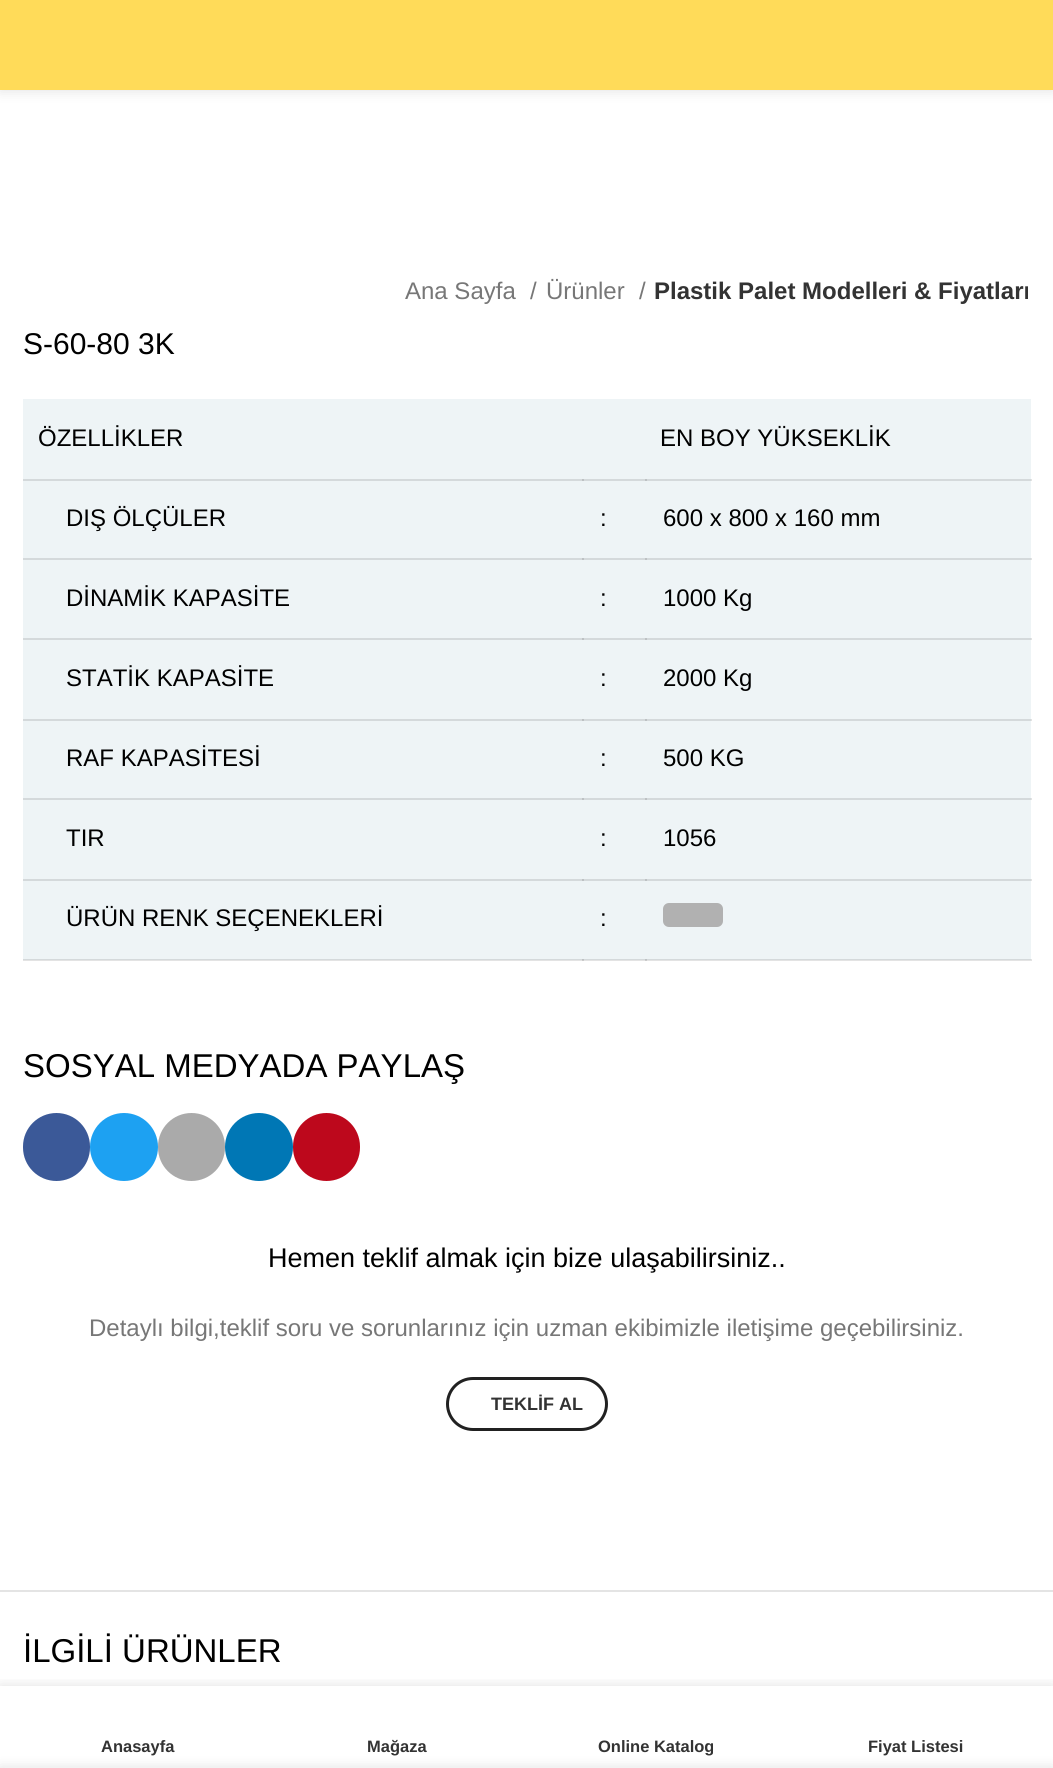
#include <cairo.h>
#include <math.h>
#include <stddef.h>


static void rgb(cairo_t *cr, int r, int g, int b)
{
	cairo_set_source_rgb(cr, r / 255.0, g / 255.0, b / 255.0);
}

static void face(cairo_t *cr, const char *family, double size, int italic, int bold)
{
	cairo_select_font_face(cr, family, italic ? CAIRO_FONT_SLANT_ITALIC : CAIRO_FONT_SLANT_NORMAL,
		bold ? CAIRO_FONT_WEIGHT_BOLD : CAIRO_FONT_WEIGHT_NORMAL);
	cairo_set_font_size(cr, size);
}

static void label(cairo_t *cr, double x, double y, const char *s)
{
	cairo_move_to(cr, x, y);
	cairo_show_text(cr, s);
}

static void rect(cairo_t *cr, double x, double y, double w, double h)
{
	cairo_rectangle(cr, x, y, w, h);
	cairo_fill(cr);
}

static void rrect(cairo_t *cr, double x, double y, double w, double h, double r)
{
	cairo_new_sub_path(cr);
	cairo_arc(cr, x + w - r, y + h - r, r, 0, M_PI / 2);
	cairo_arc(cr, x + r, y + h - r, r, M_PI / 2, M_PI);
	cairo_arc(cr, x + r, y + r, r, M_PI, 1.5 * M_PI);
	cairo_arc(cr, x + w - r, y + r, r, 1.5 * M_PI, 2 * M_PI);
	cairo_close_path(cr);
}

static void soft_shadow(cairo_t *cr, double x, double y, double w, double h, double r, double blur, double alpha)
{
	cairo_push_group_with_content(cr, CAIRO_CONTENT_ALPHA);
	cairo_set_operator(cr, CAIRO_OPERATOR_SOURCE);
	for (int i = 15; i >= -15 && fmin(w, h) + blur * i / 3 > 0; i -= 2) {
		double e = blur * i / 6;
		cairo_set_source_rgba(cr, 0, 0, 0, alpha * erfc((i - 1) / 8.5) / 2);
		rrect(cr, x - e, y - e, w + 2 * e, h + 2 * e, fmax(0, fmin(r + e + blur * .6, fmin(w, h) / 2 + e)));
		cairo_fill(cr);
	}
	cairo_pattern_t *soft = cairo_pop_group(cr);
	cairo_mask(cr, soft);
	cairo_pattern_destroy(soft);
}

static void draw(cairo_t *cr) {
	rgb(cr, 255, 255, 255);
	cairo_paint(cr);
	rgb(cr, 227, 227, 227);
	rect(cr, 1031, 479, 1, 2);
	rect(cr, 1031, 558, 1, 2);
	rect(cr, 1031, 638, 1, 2);
	rect(cr, 1031, 719, 1, 2);
	rect(cr, 1031, 798, 1, 2);
	rect(cr, 1031, 879, 1, 2);
	rect(cr, 23, 960, 624, 1);
	rgb(cr, 202, 202, 202);
	rect(cr, 582, 960, 2, 1);
	rgb(cr, 227, 227, 227);
	rect(cr, 645, 959, 387, 2);
	rgb(cr, 202, 202, 202);
	rect(cr, 645, 960, 2, 1);
	rgb(cr, 0, 0, 0);
	soft_shadow(cr, 0, 2, 1053, 90, 0, 6, 0.1);
	rgb(cr, 255, 219, 89);
	rect(cr, 0, 0, 1053, 90);
	face(cr, "Liberation Sans", 24, 0, 0);
	rgb(cr, 119, 119, 119);
	label(cr, 405, 299, "Ana Sayfa");
	label(cr, 530, 299, "/");
	label(cr, 546, 299, "Ürünler");
	label(cr, 639, 299, "/");
	face(cr, "Liberation Sans", 24, 0, 1);
	rgb(cr, 51, 51, 51);
	label(cr, 654, 299, "Plastik Palet Modelleri & Fiyatları");
	face(cr, "Liberation Sans", 30, 0, 0);
	rgb(cr, 0, 0, 0);
	label(cr, 23, 354, "S-60-80 3K");
	rgb(cr, 238, 244, 246);
	rect(cr, 23, 399, 1008, 560);
	rgb(cr, 212, 217, 219);
	rect(cr, 23, 479, 1008, 2);
	rgb(cr, 189, 193, 195);
	rect(cr, 582, 479, 2, 2);
	rect(cr, 645, 479, 2, 2);
	rgb(cr, 212, 217, 219);
	rect(cr, 23, 558, 1008, 2);
	rgb(cr, 189, 193, 195);
	rect(cr, 582, 558, 2, 2);
	rect(cr, 645, 558, 2, 2);
	rgb(cr, 212, 217, 219);
	rect(cr, 23, 638, 1008, 2);
	rgb(cr, 189, 193, 195);
	rect(cr, 582, 638, 2, 2);
	rect(cr, 645, 638, 2, 2);
	rgb(cr, 212, 217, 219);
	rect(cr, 23, 719, 1008, 2);
	rgb(cr, 189, 193, 195);
	rect(cr, 582, 719, 2, 2);
	rect(cr, 645, 719, 2, 2);
	rgb(cr, 212, 217, 219);
	rect(cr, 23, 798, 1008, 2);
	rgb(cr, 189, 193, 195);
	rect(cr, 582, 798, 2, 2);
	rect(cr, 645, 798, 2, 2);
	rgb(cr, 212, 217, 219);
	rect(cr, 23, 879, 1008, 2);
	rgb(cr, 189, 193, 195);
	rect(cr, 582, 879, 2, 2);
	rect(cr, 645, 879, 2, 2);
	rgb(cr, 212, 217, 219);
	rect(cr, 23, 959, 1008, 1);
	rgb(cr, 189, 193, 195);
	rect(cr, 582, 959, 2, 1);
	rect(cr, 645, 959, 2, 1);
	face(cr, "Liberation Sans", 24, 0, 0);
	rgb(cr, 0, 0, 0);
	label(cr, 38, 446, "ÖZELLİKLER");
	label(cr, 660, 446, "EN BOY YÜKSEKLİK");
	label(cr, 66, 526, "DIŞ ÖLÇÜLER");
	label(cr, 600, 526, ":");
	label(cr, 663, 526, "600 x 800 x 160 mm");
	label(cr, 66, 606, "DİNAMİK KAPASİTE");
	label(cr, 600, 606, ":");
	label(cr, 663, 606, "1000 Kg");
	label(cr, 66, 686, "STATİK KAPASİTE");
	label(cr, 600, 686, ":");
	label(cr, 663, 686, "2000 Kg");
	label(cr, 66, 766, "RAF KAPASİTESİ");
	label(cr, 600, 766, ":");
	label(cr, 663, 766, "500 KG");
	label(cr, 66, 846, "TIR");
	label(cr, 600, 846, ":");
	label(cr, 663, 846, "1056");
	label(cr, 66, 926, "ÜRÜN RENK SEÇENEKLERİ");
	label(cr, 600, 926, ":");
	rgb(cr, 177, 177, 177);
	rrect(cr, 663, 903, 60, 24, 6);
	cairo_fill(cr);
	face(cr, "Liberation Sans", 33, 0, 0);
	rgb(cr, 0, 0, 0);
	label(cr, 23, 1077, "SOSYAL MEDYADA PAYLAŞ");
	rgb(cr, 59, 89, 152);
	rrect(cr, 23, 1113, 67, 68, 33.5);
	cairo_fill(cr);
	rgb(cr, 29, 161, 242);
	cairo_arc(cr, 124, 1147, 34, 0, 2 * M_PI);
	cairo_fill(cr);
	rgb(cr, 170, 170, 170);
	rrect(cr, 158, 1113, 67, 68, 33.5);
	cairo_fill(cr);
	rgb(cr, 0, 119, 181);
	cairo_arc(cr, 259, 1147, 34, 0, 2 * M_PI);
	cairo_fill(cr);
	rgb(cr, 189, 8, 28);
	rrect(cr, 293, 1113, 67, 68, 33.5);
	cairo_fill(cr);
	face(cr, "Liberation Sans", 27, 0, 0);
	rgb(cr, 0, 0, 0);
	label(cr, 268, 1267, "Hemen teklif almak için bize ulaşabilirsiniz..");
	face(cr, "Liberation Sans", 24, 0, 0);
	rgb(cr, 119, 119, 119);
	label(cr, 89, 1336, "Detaylı bilgi,teklif soru ve sorunlarınız için uzman ekibimizle iletişime geçebilirsiniz.");
	rrect(cr, 447.5, 1378.5, 159, 51, 25.5);
	rgb(cr, 33, 33, 33);
	cairo_set_line_width(cr, 3);
	cairo_stroke(cr);
	face(cr, "Liberation Sans", 18, 0, 1);
	rgb(cr, 51, 51, 51);
	label(cr, 491, 1410, "TEKLİF AL");
	rgb(cr, 228, 228, 228);
	rect(cr, 0, 1590, 1053, 2);
	face(cr, "Liberation Sans", 33, 0, 0);
	rgb(cr, 0, 0, 0);
	label(cr, 23, 1662, "İLGİLİ ÜRÜNLER");
	cairo_save(cr);
	cairo_rectangle(cr, 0, 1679, 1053, 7);
	cairo_clip(cr);
	rgb(cr, 0, 0, 0);
	soft_shadow(cr, 0, 1686, 1053, 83, 0, 7, 0.12);
	cairo_restore(cr);
	face(cr, "Liberation Sans", 16.5, 0, 1);
	rgb(cr, 51, 51, 51);
	label(cr, 101, 1752, "Anasayfa");
	label(cr, 367, 1752, "Mağaza");
	label(cr, 598, 1752, "Online Katalog");
	label(cr, 868, 1752, "Fiyat Listesi");
	rgb(cr, 0, 0, 0);
	soft_shadow(cr, 0, 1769, 1053, 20, 0, 7, 0.14);
}

int main(void) {
	cairo_surface_t *surface = cairo_image_surface_create(CAIRO_FORMAT_RGB24, 1053, 1768);
	cairo_t *cr = cairo_create(surface);
	cairo_font_options_t *options = cairo_font_options_create();
	cairo_font_options_set_hint_metrics(options, CAIRO_HINT_METRICS_OFF);
	cairo_font_options_set_hint_style(options, CAIRO_HINT_STYLE_NONE);
	cairo_set_font_options(cr, options);
	cairo_set_miter_limit(cr, 4);
	draw(cr);
	cairo_surface_write_to_png(surface, "render.png");
	cairo_font_options_destroy(options);
	cairo_destroy(cr);
	cairo_surface_destroy(surface);
	return 0;
}
